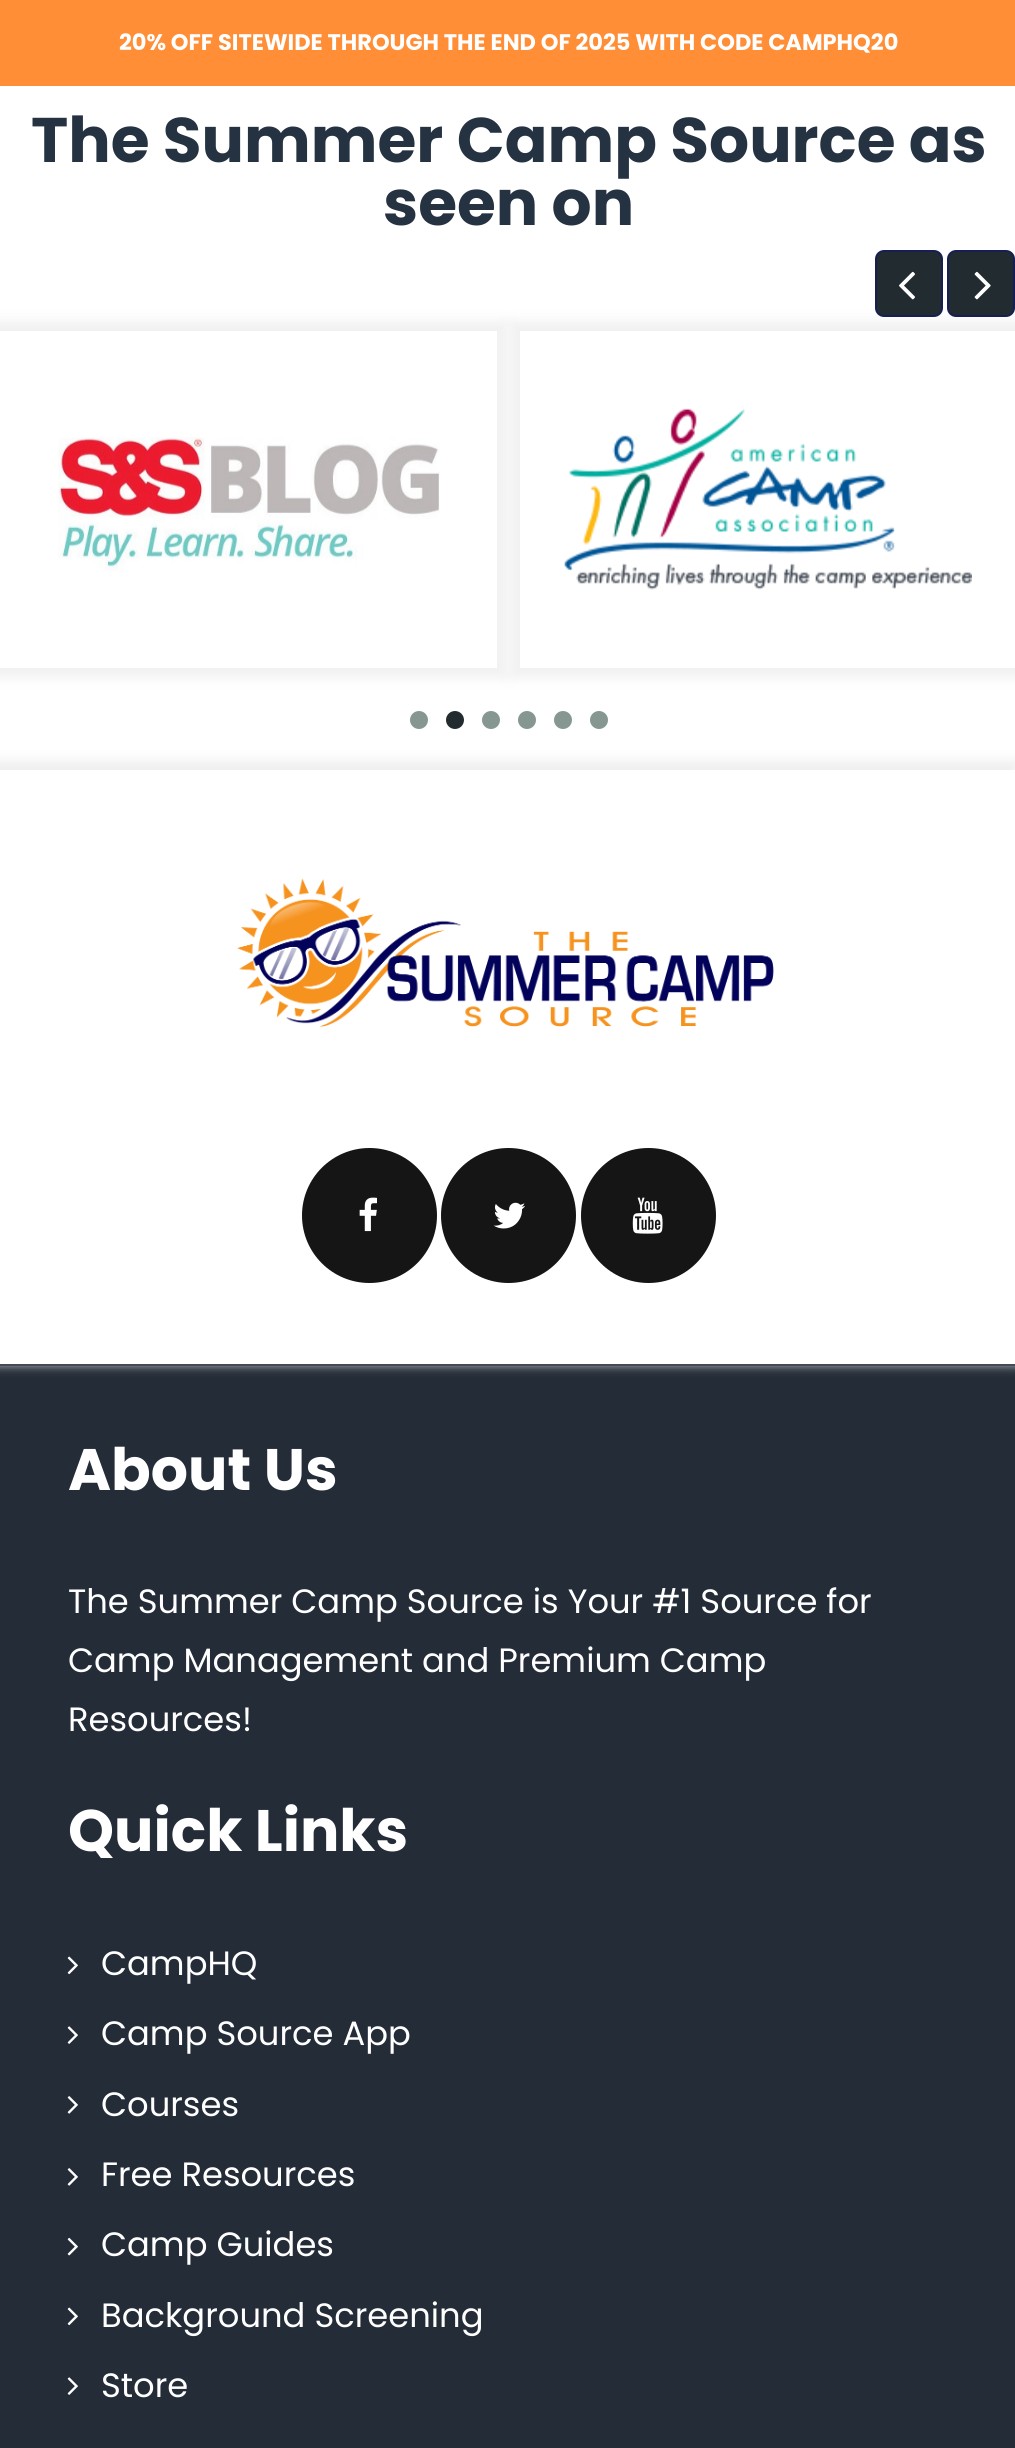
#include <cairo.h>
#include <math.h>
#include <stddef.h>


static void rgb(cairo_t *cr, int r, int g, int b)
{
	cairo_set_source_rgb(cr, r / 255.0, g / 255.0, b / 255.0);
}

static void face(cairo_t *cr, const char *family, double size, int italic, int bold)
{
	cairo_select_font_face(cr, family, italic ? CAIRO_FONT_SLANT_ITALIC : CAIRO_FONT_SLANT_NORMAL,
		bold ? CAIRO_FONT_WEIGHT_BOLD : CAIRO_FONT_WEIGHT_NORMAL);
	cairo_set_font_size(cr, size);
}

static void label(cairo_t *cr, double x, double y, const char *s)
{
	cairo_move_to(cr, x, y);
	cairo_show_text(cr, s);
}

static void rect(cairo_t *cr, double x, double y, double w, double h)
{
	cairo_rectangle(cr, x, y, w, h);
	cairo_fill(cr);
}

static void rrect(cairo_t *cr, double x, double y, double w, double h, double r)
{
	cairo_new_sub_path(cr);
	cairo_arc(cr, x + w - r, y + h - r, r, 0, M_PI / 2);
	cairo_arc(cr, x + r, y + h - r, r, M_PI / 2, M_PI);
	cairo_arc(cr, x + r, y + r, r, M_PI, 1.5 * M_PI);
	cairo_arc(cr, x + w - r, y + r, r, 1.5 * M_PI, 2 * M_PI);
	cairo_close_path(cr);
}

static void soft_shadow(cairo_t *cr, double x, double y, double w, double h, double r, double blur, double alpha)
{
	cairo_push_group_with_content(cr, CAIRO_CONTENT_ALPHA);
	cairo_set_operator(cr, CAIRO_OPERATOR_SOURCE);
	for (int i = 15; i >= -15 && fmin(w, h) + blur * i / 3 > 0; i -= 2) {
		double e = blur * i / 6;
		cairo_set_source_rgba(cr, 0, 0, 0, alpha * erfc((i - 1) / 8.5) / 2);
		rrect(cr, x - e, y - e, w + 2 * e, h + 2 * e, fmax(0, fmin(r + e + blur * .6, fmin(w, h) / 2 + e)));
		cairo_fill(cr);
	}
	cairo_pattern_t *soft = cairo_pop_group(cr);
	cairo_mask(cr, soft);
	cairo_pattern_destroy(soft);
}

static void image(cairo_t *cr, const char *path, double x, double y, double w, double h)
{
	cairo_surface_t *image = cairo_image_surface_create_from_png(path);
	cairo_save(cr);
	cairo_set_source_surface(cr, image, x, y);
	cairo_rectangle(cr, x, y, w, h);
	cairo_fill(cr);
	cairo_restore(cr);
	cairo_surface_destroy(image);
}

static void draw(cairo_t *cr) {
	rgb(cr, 255, 255, 255);
	cairo_paint(cr);
	rgb(cr, 255, 142, 54);
	rect(cr, 0, 0, 1015, 86);
	face(cr, "Poppins", 22.5, 0, 1);
	rgb(cr, 255, 255, 255);
	label(cr, 119, 50, "20% OFF SITEWIDE THROUGH THE END OF 2025 WITH CODE CAMPHQ20");
	face(cr, "Poppins", 63, 0, 1);
	rgb(cr, 37, 50, 66);
	label(cr, 31, 162, "The Summer Camp Source as");
	label(cr, 383, 225, "seen on");
	cairo_save(cr);
	cairo_set_fill_rule(cr, CAIRO_FILL_RULE_EVEN_ODD);
	cairo_new_path(cr);
	cairo_move_to(cr, 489, 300);
	cairo_line_to(cr, 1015, 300);
	cairo_line_to(cr, 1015, 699);
	cairo_line_to(cr, 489, 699);
	cairo_close_path(cr);
	cairo_move_to(cr, 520, 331);
	cairo_line_to(cr, 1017, 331);
	cairo_line_to(cr, 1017, 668);
	cairo_line_to(cr, 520, 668);
	cairo_close_path(cr);
	cairo_clip(cr);
	rgb(cr, 238, 238, 238);
	soft_shadow(cr, 511, 322, 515, 355, 0, 7, 0.93);
	cairo_restore(cr);
	rgb(cr, 34, 43, 48);
	rrect(cr, 876, 251, 66, 65, 8);
	cairo_fill_preserve(cr);
	rgb(cr, 22, 30, 84);
	cairo_stroke(cr);
	image(cr, "image0.png", 899, 271, 16, 29);
	rgb(cr, 34, 43, 48);
	rrect(cr, 948, 251, 66, 65, 8);
	cairo_fill_preserve(cr);
	rgb(cr, 22, 30, 84);
	cairo_stroke(cr);
	image(cr, "image1.png", 974, 271, 17, 29);
	cairo_save(cr);
	cairo_set_fill_rule(cr, CAIRO_FILL_RULE_EVEN_ODD);
	cairo_new_path(cr);
	cairo_move_to(cr, 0, 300);
	cairo_line_to(cr, 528, 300);
	cairo_line_to(cr, 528, 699);
	cairo_line_to(cr, 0, 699);
	cairo_close_path(cr);
	cairo_move_to(cr, 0, 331);
	cairo_line_to(cr, 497, 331);
	cairo_line_to(cr, 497, 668);
	cairo_line_to(cr, 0, 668);
	cairo_close_path(cr);
	cairo_clip(cr);
	rgb(cr, 238, 238, 238);
	soft_shadow(cr, -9, 322, 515, 355, 0, 7, 0.93);
	cairo_restore(cr);
	image(cr, "image2.png", 58, 437, 382, 135);
	image(cr, "image3.png", 564, 408, 408, 182);
	rgb(cr, 134, 151, 145);
	cairo_arc(cr, 419, 720, 9, 0, 2 * M_PI);
	cairo_fill(cr);
	rgb(cr, 34, 43, 48);
	cairo_arc(cr, 455, 720, 9, 0, 2 * M_PI);
	cairo_fill(cr);
	rgb(cr, 134, 151, 145);
	cairo_arc(cr, 491, 720, 9, 0, 2 * M_PI);
	cairo_fill(cr);
	cairo_arc(cr, 527, 720, 9, 0, 2 * M_PI);
	cairo_fill(cr);
	cairo_arc(cr, 563, 720, 9, 0, 2 * M_PI);
	cairo_fill(cr);
	cairo_arc(cr, 599, 720, 9, 0, 2 * M_PI);
	cairo_fill(cr);
	rgb(cr, 36, 44, 56);
	rect(cr, 0, 1366, 1015, 1082);
	rgb(cr, 238, 238, 238);
	soft_shadow(cr, -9, 761, 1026, 603, 0, 5.5, 1);
	rgb(cr, 255, 255, 255);
	rect(cr, 0, 770, 1015, 594);
	image(cr, "image4.png", 237, 878, 537, 149);
	rgb(cr, 21, 21, 21);
	cairo_arc(cr, 369.5, 1215.5, 67.5, 0, 2 * M_PI);
	cairo_fill(cr);
	image(cr, "image5.png", 359, 1197, 18, 35);
	cairo_arc(cr, 508.5, 1215.5, 67.5, 0, 2 * M_PI);
	cairo_fill(cr);
	image(cr, "image6.png", 493, 1202, 32, 27);
	cairo_arc(cr, 648.5, 1215.5, 67.5, 0, 2 * M_PI);
	cairo_fill(cr);
	image(cr, "image7.png", 632, 1197, 31, 37);
	rgb(cr, 69, 75, 86);
	rect(cr, 0, 1364, 1015, 2);
	face(cr, "Poppins", 58.5, 0, 1);
	rgb(cr, 255, 255, 255);
	label(cr, 68, 1490, "About Us");
	face(cr, "Poppins", 33.75, 0, 0);
	label(cr, 68, 1613, "The Summer Camp Source is Your #1 Source for");
	label(cr, 68, 1672, "Camp Management and Premium Camp");
	label(cr, 68, 1731, "Resources!");
	face(cr, "Poppins", 58.5, 0, 1);
	label(cr, 68, 1851, "Quick Links");
	image(cr, "image8.png", 67, 1956, 11, 19);
	face(cr, "Poppins", 33.75, 0, 0);
	label(cr, 101, 1975, "CampHQ");
	image(cr, "image9.png", 67, 2026, 11, 18);
	label(cr, 101, 2045, "Camp Source App");
	image(cr, "image10.png", 67, 2096, 11, 18);
	label(cr, 101, 2116, "Courses");
	image(cr, "image10.png", 67, 2168, 11, 18);
	label(cr, 101, 2186, "Free Resources");
	image(cr, "image11.png", 67, 2237, 11, 19);
	label(cr, 101, 2256, "Camp Guides");
	image(cr, "image8.png", 67, 2307, 11, 19);
	label(cr, 101, 2327, "Background Screening");
	image(cr, "image9.png", 67, 2377, 11, 18);
	label(cr, 101, 2397, "Store");
}

int main(void) {
	cairo_surface_t *surface = cairo_image_surface_create(CAIRO_FORMAT_RGB24, 1015, 2448);
	cairo_t *cr = cairo_create(surface);
	cairo_font_options_t *options = cairo_font_options_create();
	cairo_font_options_set_hint_metrics(options, CAIRO_HINT_METRICS_OFF);
	cairo_font_options_set_hint_style(options, CAIRO_HINT_STYLE_NONE);
	cairo_set_font_options(cr, options);
	cairo_set_miter_limit(cr, 4);
	draw(cr);
	cairo_surface_write_to_png(surface, "render.png");
	cairo_font_options_destroy(options);
	cairo_destroy(cr);
	cairo_surface_destroy(surface);
	return 0;
}
